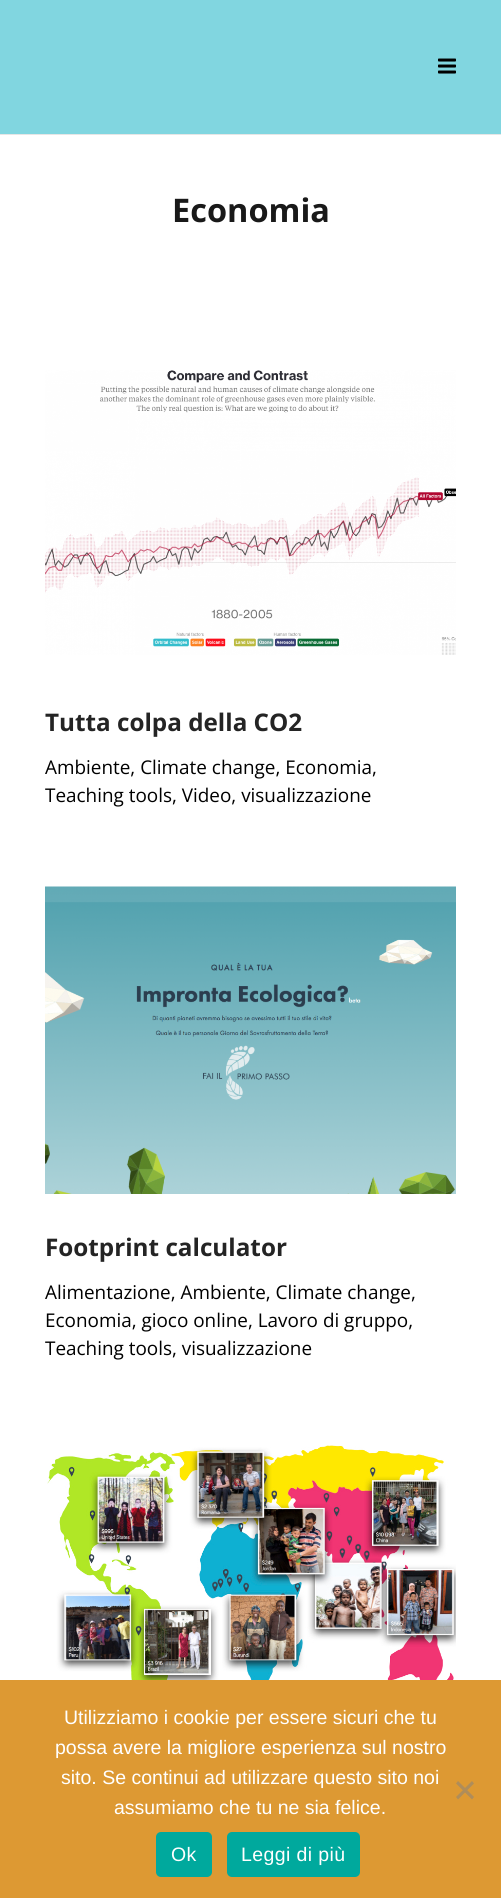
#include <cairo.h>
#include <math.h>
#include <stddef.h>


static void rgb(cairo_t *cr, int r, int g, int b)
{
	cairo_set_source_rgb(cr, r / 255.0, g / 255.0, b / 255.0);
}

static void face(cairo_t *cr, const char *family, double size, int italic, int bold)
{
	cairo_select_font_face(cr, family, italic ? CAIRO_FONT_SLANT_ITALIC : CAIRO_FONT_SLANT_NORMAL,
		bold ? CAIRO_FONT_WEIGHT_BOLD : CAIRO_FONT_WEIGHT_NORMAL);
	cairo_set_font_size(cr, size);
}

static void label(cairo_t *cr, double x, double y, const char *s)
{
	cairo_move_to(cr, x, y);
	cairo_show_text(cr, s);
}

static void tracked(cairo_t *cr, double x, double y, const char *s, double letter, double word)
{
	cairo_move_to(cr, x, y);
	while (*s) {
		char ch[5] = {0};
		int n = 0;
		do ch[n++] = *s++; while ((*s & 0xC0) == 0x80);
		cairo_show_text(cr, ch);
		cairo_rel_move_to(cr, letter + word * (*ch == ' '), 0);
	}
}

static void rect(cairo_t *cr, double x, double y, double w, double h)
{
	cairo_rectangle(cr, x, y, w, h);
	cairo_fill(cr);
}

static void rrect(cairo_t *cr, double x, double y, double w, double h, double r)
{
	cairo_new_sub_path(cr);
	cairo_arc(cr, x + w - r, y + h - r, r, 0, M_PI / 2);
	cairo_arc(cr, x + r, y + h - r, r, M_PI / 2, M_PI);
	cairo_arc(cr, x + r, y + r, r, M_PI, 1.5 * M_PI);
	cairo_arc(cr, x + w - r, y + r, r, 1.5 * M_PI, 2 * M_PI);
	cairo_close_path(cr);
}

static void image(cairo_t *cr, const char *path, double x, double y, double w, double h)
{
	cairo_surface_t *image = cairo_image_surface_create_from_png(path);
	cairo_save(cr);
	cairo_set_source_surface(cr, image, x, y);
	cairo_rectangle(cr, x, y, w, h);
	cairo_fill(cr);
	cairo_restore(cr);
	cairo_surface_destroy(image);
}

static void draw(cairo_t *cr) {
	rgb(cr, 255, 255, 255);
	cairo_paint(cr);
	rgb(cr, 230, 230, 230);
	rect(cr, 0, 134, 501, 1);
	rgb(cr, 129, 214, 224);
	rect(cr, 0, 0, 501, 134);
	image(cr, "image0.png", 438, 58, 18, 16);
	face(cr, "Open Sans", 32.5, 0, 1);
	rgb(cr, 25, 25, 25);
	label(cr, 172, 222, "Economia");
	image(cr, "image1.png", 45, 370, 411, 285);
	face(cr, "Open Sans", 24.25, 0, 1);
	rgb(cr, 36, 36, 36);
	label(cr, 45, 731, "Tutta colpa della CO2");
	face(cr, "Open Sans", 18.9, 0, 0);
	rgb(cr, 0, 0, 0);
	label(cr, 45, 774, "Ambiente, Climate change, Economia,");
	label(cr, 45, 802, "Teaching tools, Video, visualizzazione");
	image(cr, "image2.png", 45, 886, 411, 308);
	face(cr, "Open Sans", 24.25, 0, 1);
	rgb(cr, 36, 36, 36);
	label(cr, 45, 1256, "Footprint calculator");
	face(cr, "Open Sans", 18.9, 0, 0);
	rgb(cr, 0, 0, 0);
	label(cr, 45, 1299, "Alimentazione, Ambiente, Climate change,");
	label(cr, 45, 1327, "Economia, gioco online, Lavoro di gruppo,");
	label(cr, 45, 1355, "Teaching tools, visualizzazione");
	image(cr, "image3.png", 47, 1445, 409, 235);
	rgb(cr, 221, 153, 51);
	rect(cr, 0, 1680, 501, 218);
	face(cr, "Liberation Sans", 19.5, 0, 0);
	rgb(cr, 255, 255, 255);
	label(cr, 64, 1724, "Utilizziamo i cookie per essere sicuri che tu");
	label(cr, 55, 1754, "possa avere la migliore esperienza sul nostro");
	label(cr, 61, 1784, "sito. Se continui ad utilizzare questo sito noi");
	label(cr, 114, 1814, "assumiamo che tu ne sia felice.");
	rgb(cr, 175, 141, 90);
	cairo_new_path(cr);
	cairo_move_to(cr, 472, 1781);
	cairo_line_to(cr, 474, 1783.5);
	cairo_line_to(cr, 458, 1799.5);
	cairo_line_to(cr, 456, 1797);
	cairo_close_path(cr);
	cairo_fill(cr);
	cairo_new_path(cr);
	cairo_move_to(cr, 456, 1783.5);
	cairo_line_to(cr, 458, 1781);
	cairo_line_to(cr, 474, 1797);
	cairo_line_to(cr, 472, 1799.5);
	cairo_close_path(cr);
	cairo_fill(cr);
	rgb(cr, 0, 169, 157);
	rrect(cr, 156, 1832, 56, 45, 5);
	cairo_fill(cr);
	rgb(cr, 255, 255, 255);
	tracked(cr, 171, 1861, "Ok", 0.4, 0);
	rgb(cr, 0, 169, 157);
	rrect(cr, 227, 1832, 133, 45, 5);
	cairo_fill(cr);
	rgb(cr, 255, 255, 255);
	tracked(cr, 241, 1861, "Leggi di più", 0.4, 0);
}

int main(void) {
	cairo_surface_t *surface = cairo_image_surface_create(CAIRO_FORMAT_RGB24, 501, 1898);
	cairo_t *cr = cairo_create(surface);
	cairo_font_options_t *options = cairo_font_options_create();
	cairo_font_options_set_hint_metrics(options, CAIRO_HINT_METRICS_OFF);
	cairo_font_options_set_hint_style(options, CAIRO_HINT_STYLE_NONE);
	cairo_set_font_options(cr, options);
	cairo_set_miter_limit(cr, 4);
	draw(cr);
	cairo_surface_write_to_png(surface, "render.png");
	cairo_font_options_destroy(options);
	cairo_destroy(cr);
	cairo_surface_destroy(surface);
	return 0;
}
